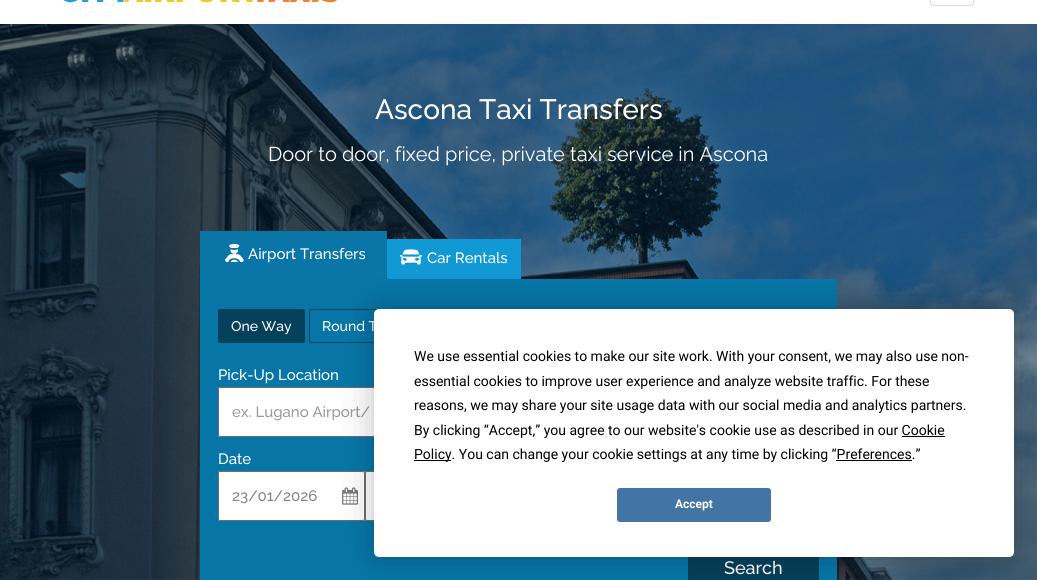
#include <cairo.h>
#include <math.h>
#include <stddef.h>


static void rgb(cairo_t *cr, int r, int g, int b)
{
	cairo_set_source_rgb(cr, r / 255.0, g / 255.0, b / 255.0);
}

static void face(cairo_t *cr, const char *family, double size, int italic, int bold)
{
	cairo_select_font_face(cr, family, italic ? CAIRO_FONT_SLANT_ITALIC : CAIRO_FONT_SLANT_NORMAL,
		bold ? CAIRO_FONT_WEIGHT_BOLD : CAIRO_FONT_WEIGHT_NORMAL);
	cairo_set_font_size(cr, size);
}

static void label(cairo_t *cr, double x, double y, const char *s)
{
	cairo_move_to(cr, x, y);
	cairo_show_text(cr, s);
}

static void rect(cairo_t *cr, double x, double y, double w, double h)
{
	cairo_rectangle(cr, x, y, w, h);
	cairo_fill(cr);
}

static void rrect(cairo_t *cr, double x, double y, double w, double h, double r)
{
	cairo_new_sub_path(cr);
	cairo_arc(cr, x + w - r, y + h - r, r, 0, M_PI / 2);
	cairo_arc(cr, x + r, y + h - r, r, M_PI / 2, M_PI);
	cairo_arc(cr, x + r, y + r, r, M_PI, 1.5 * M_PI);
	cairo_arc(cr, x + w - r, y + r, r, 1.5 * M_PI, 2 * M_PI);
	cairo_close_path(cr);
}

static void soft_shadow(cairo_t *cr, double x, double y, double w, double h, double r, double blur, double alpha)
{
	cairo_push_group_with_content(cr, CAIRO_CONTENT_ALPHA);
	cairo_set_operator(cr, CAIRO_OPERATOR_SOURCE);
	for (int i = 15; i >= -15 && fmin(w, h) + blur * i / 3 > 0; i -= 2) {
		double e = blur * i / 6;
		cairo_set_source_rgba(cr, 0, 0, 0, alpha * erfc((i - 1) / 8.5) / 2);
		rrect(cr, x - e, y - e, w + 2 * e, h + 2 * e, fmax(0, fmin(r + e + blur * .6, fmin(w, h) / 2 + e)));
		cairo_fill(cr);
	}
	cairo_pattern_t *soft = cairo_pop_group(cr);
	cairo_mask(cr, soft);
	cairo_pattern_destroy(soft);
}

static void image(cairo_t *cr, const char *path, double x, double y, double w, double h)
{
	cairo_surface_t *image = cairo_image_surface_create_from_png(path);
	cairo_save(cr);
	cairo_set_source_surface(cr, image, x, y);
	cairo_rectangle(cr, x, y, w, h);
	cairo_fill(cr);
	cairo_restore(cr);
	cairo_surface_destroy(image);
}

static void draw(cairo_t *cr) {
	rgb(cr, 255, 255, 255);
	cairo_paint(cr);
	image(cr, "image0.png", 63, 0, 274, 3);
	rrect(cr, 930.5, -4.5, 43, 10, 3.5);
	rgb(cr, 221, 221, 221);
	cairo_set_line_width(cr, 1);
	cairo_stroke(cr);
	image(cr, "image1.png", 0, 24, 1037, 556);
	face(cr, "Raleway Medium", 28, 0, 0);
	rgb(cr, 255, 255, 255);
	label(cr, 375, 119, "Ascona Taxi Transfers");
	face(cr, "Raleway", 20, 0, 0);
	label(cr, 268, 161, "Door to door, fixed price, private taxi service in Ascona");
	rgb(cr, 9, 118, 167);
	rect(cr, 200, 231, 187, 48);
	image(cr, "image2.png", 225, 244, 19, 18);
	face(cr, "Raleway Medium", 15, 0, 0);
	rgb(cr, 255, 255, 255);
	label(cr, 248, 259, "Airport Transfers");
	rgb(cr, 17, 153, 214);
	rect(cr, 387, 239, 134, 40);
	image(cr, "image3.png", 400, 249, 22, 16);
	rgb(cr, 255, 255, 255);
	label(cr, 427, 263, "Car Rentals");
	rgb(cr, 7, 118, 167);
	rect(cr, 200, 279, 637, 301);
	rgb(cr, 6, 65, 91);
	rrect(cr, 218.5, 309.5, 86, 33, 1.5);
	cairo_fill_preserve(cr);
	cairo_stroke(cr);
	face(cr, "Raleway Medium", 14, 0, 0);
	rgb(cr, 255, 255, 255);
	label(cr, 231, 331, "One Way");
	rrect(cr, 309.5, 309.5, 97, 33, 1.5);
	rgb(cr, 6, 65, 91);
	cairo_stroke(cr);
	rgb(cr, 255, 255, 255);
	label(cr, 322, 331, "Round T");
	face(cr, "Raleway Medium", 15, 0, 0);
	label(cr, 218, 380, "Pick-Up Location");
	rrect(cr, 218, 387, 294, 50, 2);
	cairo_fill(cr);
	rrect(cr, 218.5, 387.5, 293, 49, 1.5);
	cairo_set_source_rgba(cr, 0.329, 0.329, 0.329, 0.85);
	cairo_stroke(cr);
	rgb(cr, 153, 153, 153);
	label(cr, 232, 417, "ex. Lugano Airport/");
	rgb(cr, 255, 255, 255);
	label(cr, 218, 464, "Date");
	rrect(cr, 218, 471, 147, 50, 2);
	cairo_fill(cr);
	image(cr, "image4.png", 342, 487, 16, 18);
	rrect(cr, 218.5, 471.5, 146, 49, 1.5);
	cairo_set_source_rgba(cr, 0.329, 0.329, 0.329, 0.85);
	cairo_stroke(cr);
	rgb(cr, 132, 132, 132);
	label(cr, 232, 501, "23/01/2026");
	rgb(cr, 255, 255, 255);
	rrect(cr, 365, 471, 74, 50, 2);
	cairo_fill(cr);
	rrect(cr, 365.5, 471.5, 73, 49, 1.5);
	cairo_set_source_rgba(cr, 0.329, 0.329, 0.329, 0.85);
	cairo_stroke(cr);
	rgb(cr, 6, 65, 91);
	rect(cr, 688, 557, 131, 23);
	face(cr, "Raleway Medium", 18, 0, 0);
	rgb(cr, 255, 255, 255);
	label(cr, 724, 574, "Search");
	rgb(cr, 0, 0, 0);
	soft_shadow(cr, 374, 309, 640, 248, 5, 17.5, 0.25);
	rgb(cr, 255, 255, 255);
	rrect(cr, 374, 309, 640, 248, 5);
	cairo_fill(cr);
	face(cr, "Roboto", 14, 0, 0);
	rgb(cr, 0, 0, 0);
	label(cr, 414, 361, "We use essential cookies to make our site work. With your consent, we may also use non-");
	label(cr, 414, 386, "essential cookies to improve user experience and analyze website traffic. For these");
	label(cr, 414, 410, "reasons, we may share your site usage data with our social media and analytics partners.");
	label(cr, 414, 435, "By clicking “Accept,” you agree to our website's cookie use as described in our Cookie");
	rect(cr, 414, 460, 37, 1);
	label(cr, 414, 459, "Policy. You can change your cookie settings at any time by clicking “Preferences.”");
	rect(cr, 902, 436, 43, 1);
	rect(cr, 836, 460, 76, 1);
	rgb(cr, 67, 117, 164);
	rrect(cr, 617.5, 488.5, 153, 33, 2.5);
	cairo_fill_preserve(cr);
	cairo_stroke(cr);
	face(cr, "Roboto", 12, 0, 1);
	rgb(cr, 255, 255, 255);
	label(cr, 675, 508, "Accept");
}

int main(void) {
	cairo_surface_t *surface = cairo_image_surface_create(CAIRO_FORMAT_RGB24, 1037, 580);
	cairo_t *cr = cairo_create(surface);
	cairo_font_options_t *options = cairo_font_options_create();
	cairo_font_options_set_hint_metrics(options, CAIRO_HINT_METRICS_OFF);
	cairo_font_options_set_hint_style(options, CAIRO_HINT_STYLE_NONE);
	cairo_set_font_options(cr, options);
	cairo_set_miter_limit(cr, 4);
	draw(cr);
	cairo_surface_write_to_png(surface, "render.png");
	cairo_font_options_destroy(options);
	cairo_destroy(cr);
	cairo_surface_destroy(surface);
	return 0;
}
